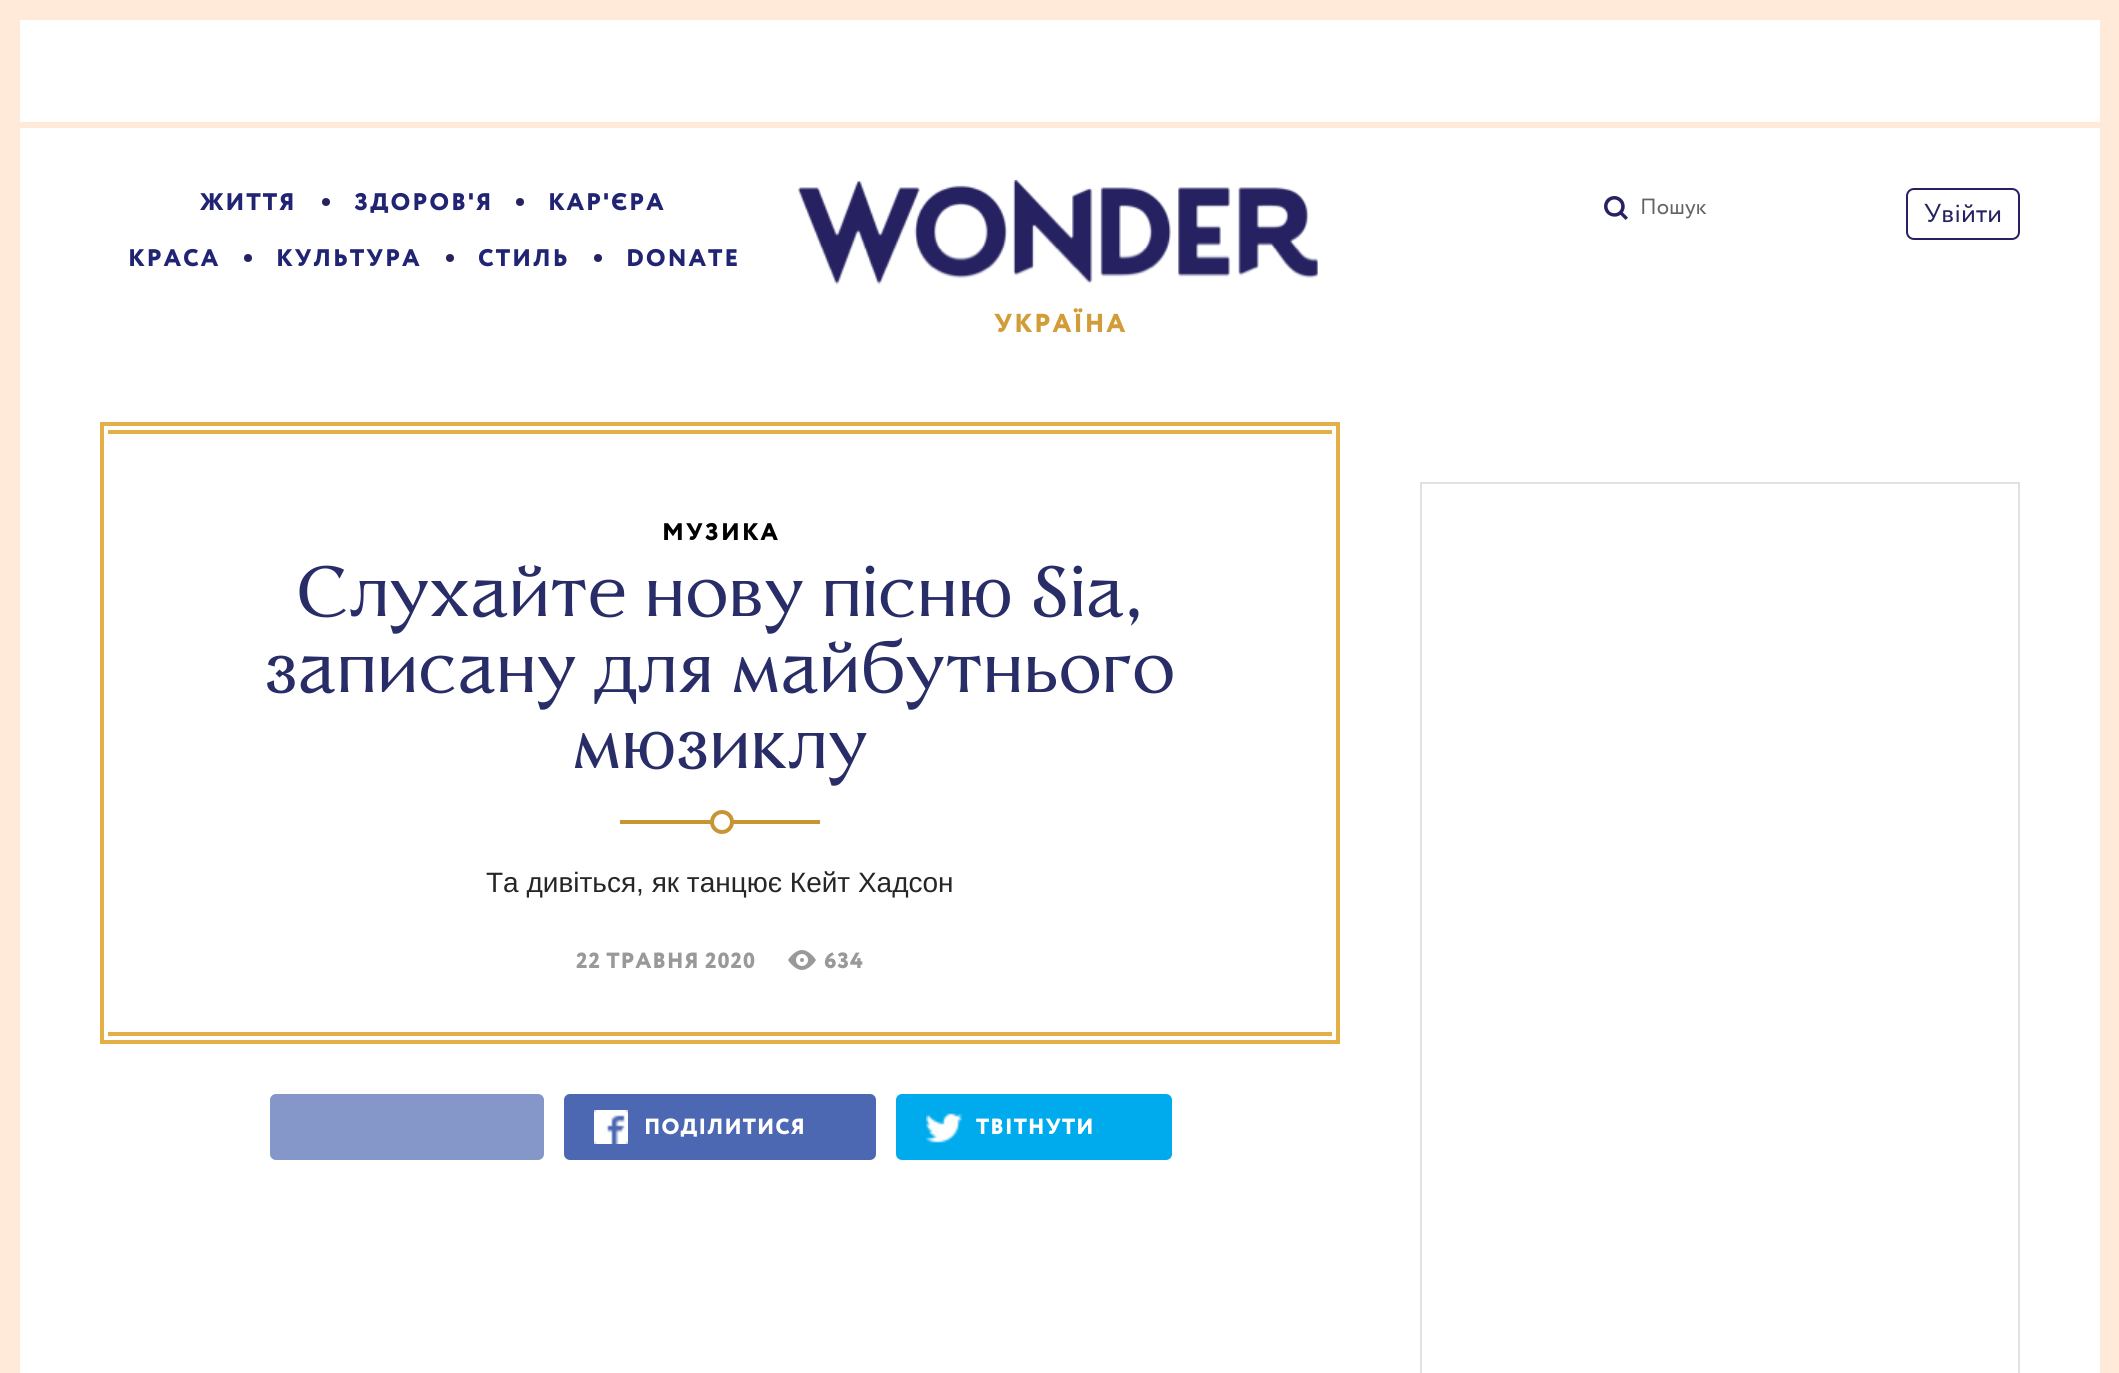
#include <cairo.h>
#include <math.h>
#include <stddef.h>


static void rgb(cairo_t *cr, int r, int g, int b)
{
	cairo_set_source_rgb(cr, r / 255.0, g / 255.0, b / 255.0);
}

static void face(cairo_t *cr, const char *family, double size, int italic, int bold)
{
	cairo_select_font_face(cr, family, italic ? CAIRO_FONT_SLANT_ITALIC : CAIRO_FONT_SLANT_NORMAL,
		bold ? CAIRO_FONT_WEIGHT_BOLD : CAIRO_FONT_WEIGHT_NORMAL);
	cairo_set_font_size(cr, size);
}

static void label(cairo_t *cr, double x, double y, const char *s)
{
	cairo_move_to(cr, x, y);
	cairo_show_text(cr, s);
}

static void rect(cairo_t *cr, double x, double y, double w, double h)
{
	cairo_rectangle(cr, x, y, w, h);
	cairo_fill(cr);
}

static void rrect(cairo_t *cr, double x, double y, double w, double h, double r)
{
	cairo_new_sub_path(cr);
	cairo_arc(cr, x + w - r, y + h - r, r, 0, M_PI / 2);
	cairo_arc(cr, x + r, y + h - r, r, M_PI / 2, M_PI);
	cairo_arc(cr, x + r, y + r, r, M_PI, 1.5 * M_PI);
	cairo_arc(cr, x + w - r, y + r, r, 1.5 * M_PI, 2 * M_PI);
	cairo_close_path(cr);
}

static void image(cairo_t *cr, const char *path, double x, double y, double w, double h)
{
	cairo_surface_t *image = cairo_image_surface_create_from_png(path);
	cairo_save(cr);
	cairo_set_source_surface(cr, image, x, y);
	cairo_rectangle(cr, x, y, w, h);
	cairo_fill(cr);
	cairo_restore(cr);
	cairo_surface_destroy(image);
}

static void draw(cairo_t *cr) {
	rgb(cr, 255, 234, 218);
	cairo_paint(cr);
	rgb(cr, 255, 255, 255);
	rect(cr, 20, 20, 2080, 102);
	rect(cr, 20, 128, 2080, 234);
	image(cr, "image0.png", 200, 193, 93, 17);
	rgb(cr, 38, 34, 97);
	cairo_arc(cr, 326, 202, 4, 0, 2 * M_PI);
	cairo_fill(cr);
	image(cr, "image1.png", 354, 192, 136, 21);
	cairo_arc(cr, 520, 202, 4, 0, 2 * M_PI);
	cairo_fill(cr);
	image(cr, "image2.png", 550, 192, 114, 19);
	image(cr, "image3.png", 130, 248, 89, 19);
	cairo_arc(cr, 248, 258, 4, 0, 2 * M_PI);
	cairo_fill(cr);
	image(cr, "image4.png", 278, 249, 142, 18);
	cairo_arc(cr, 450, 258, 4, 0, 2 * M_PI);
	cairo_fill(cr);
	image(cr, "image5.png", 479, 248, 88, 19);
	cairo_arc(cr, 598, 258, 4, 0, 2 * M_PI);
	cairo_fill(cr);
	image(cr, "image6.png", 628, 248, 109, 19);
	image(cr, "image7.png", 798, 180, 520, 105);
	image(cr, "image8.png", 994, 308, 132, 24);
	image(cr, "image9.png", 1604, 196, 24, 24);
	image(cr, "image10.png", 1642, 198, 65, 21);
	rrect(cr, 1907, 189, 112, 50, 7);
	cairo_stroke(cr);
	image(cr, "image11.png", 1924, 203, 77, 20);
	rgb(cr, 255, 255, 255);
	rect(cr, 20, 362, 2080, 1011);
	cairo_rectangle(cr, 102, 424, 1236, 618);
	rgb(cr, 229, 175, 72);
	cairo_set_line_width(cr, 4);
	cairo_stroke(cr);
	rect(cr, 108, 430, 1224, 4);
	image(cr, "image12.png", 664, 522, 114, 19);
	face(cr, "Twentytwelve", 70, 0, 0);
	rgb(cr, 41, 45, 103);
	label(cr, 296, 616, "Слухайте нову пісню Sia,");
	label(cr, 265, 692, "записану для майбутнього");
	label(cr, 572, 768, "мюзиклу");
	rgb(cr, 200, 149, 52);
	rect(cr, 620, 820, 200, 4);
	rgb(cr, 255, 255, 255);
	cairo_new_path(cr);
	cairo_arc(cr, 722, 822, 10, 0, 2 * M_PI);
	cairo_fill_preserve(cr);
	rgb(cr, 200, 149, 52);
	cairo_stroke(cr);
	face(cr, "Liberation Sans", 28, 0, 0);
	rgb(cr, 38, 38, 38);
	label(cr, 486, 892, "Та дивіться, як танцює Кейт Хадсон");
	image(cr, "image13.png", 576, 952, 179, 17);
	image(cr, "image14.png", 788, 950, 28, 20);
	image(cr, "image15.png", 824, 952, 39, 17);
	rgb(cr, 229, 175, 72);
	rect(cr, 108, 1032, 1224, 4);
	rgb(cr, 133, 151, 200);
	rrect(cr, 270, 1094, 274, 66, 6);
	cairo_fill(cr);
	rgb(cr, 76, 104, 179);
	rrect(cr, 564, 1094, 312, 66, 6);
	cairo_fill(cr);
	image(cr, "image16.png", 594, 1110, 34, 34);
	image(cr, "image17.png", 646, 1118, 157, 19);
	rgb(cr, 0, 171, 237);
	rrect(cr, 896, 1094, 276, 66, 6);
	cairo_fill(cr);
	image(cr, "image18.png", 926, 1113, 36, 30);
	image(cr, "image19.png", 976, 1118, 116, 17);
	cairo_rectangle(cr, 1421, 483, 598, 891);
	rgb(cr, 225, 225, 225);
	cairo_set_line_width(cr, 2);
	cairo_stroke(cr);
}

int main(void) {
	cairo_surface_t *surface = cairo_image_surface_create(CAIRO_FORMAT_RGB24, 2119, 1373);
	cairo_t *cr = cairo_create(surface);
	cairo_font_options_t *options = cairo_font_options_create();
	cairo_font_options_set_hint_metrics(options, CAIRO_HINT_METRICS_OFF);
	cairo_font_options_set_hint_style(options, CAIRO_HINT_STYLE_NONE);
	cairo_set_font_options(cr, options);
	cairo_set_miter_limit(cr, 4);
	draw(cr);
	cairo_surface_write_to_png(surface, "render.png");
	cairo_font_options_destroy(options);
	cairo_destroy(cr);
	cairo_surface_destroy(surface);
	return 0;
}
